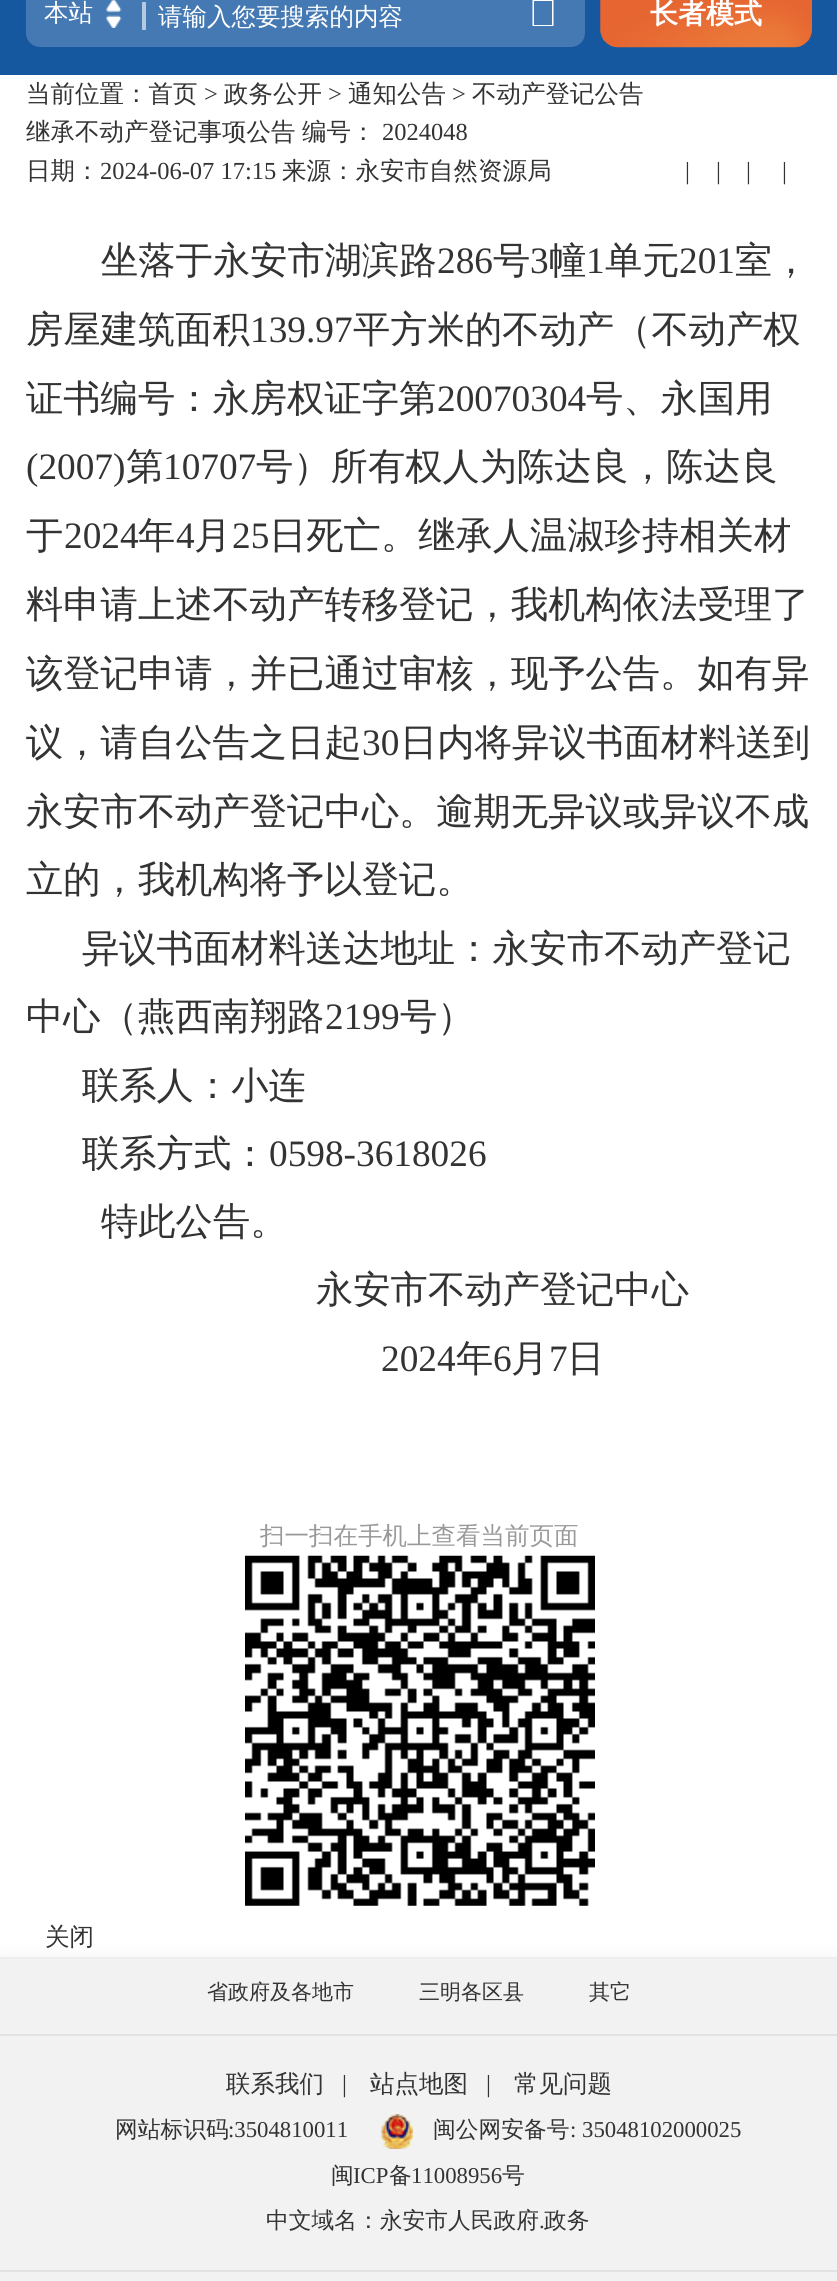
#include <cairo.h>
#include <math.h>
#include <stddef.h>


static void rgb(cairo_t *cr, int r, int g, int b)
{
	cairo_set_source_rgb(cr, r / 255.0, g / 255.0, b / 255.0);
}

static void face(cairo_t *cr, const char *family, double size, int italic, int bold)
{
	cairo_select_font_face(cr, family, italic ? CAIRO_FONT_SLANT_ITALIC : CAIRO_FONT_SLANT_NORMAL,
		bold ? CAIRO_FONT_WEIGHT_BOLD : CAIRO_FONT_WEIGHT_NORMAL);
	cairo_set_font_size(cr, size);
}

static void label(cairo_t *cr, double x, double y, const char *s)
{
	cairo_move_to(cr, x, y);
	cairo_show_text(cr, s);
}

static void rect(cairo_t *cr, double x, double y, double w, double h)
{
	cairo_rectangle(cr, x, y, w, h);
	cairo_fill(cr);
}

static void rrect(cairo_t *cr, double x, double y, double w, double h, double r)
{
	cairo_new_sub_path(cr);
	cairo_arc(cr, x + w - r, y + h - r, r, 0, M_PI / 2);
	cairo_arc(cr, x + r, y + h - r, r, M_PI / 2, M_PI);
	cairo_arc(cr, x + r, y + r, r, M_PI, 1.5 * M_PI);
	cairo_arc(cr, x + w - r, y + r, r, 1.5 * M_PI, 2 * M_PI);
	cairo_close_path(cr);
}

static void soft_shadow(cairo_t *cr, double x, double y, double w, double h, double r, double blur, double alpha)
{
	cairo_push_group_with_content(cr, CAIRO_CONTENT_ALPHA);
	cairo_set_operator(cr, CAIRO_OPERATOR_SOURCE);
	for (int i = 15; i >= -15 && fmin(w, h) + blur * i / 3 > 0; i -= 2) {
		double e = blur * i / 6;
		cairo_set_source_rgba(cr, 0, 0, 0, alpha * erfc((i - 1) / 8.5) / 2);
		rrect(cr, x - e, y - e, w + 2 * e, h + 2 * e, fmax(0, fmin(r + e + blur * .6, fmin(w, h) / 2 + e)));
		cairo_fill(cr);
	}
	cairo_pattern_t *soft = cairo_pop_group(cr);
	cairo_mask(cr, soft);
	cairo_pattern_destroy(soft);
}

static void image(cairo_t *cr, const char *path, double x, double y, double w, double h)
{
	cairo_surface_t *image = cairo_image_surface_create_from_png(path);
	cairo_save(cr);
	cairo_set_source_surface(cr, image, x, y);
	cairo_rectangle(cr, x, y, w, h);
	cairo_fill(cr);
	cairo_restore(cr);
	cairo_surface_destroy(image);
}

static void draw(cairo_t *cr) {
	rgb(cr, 255, 255, 255);
	cairo_paint(cr);
	rgb(cr, 22, 88, 160);
	rect(cr, 0, 0, 837, 75);
	rgb(cr, 69, 121, 179);
	rrect(cr, 26, -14, 559, 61, 14);
	cairo_fill(cr);
	face(cr, "WenQuanYi Zen Hei Medium", 24.5, 0, 0);
	rgb(cr, 255, 255, 255);
	label(cr, 44, 21, "本站");
	image(cr, "image0.png", 106, 0, 16, 28);
	rgb(cr, 181, 201, 225);
	rect(cr, 142, 2, 4, 28);
	rgb(cr, 255, 255, 255);
	label(cr, 158, 25, "请输入您要搜索的内容");
	cairo_new_path(cr);
	cairo_move_to(cr, 532.5, 0);
	cairo_line_to(cr, 553.5, 0);
	cairo_line_to(cr, 553.5, 26);
	cairo_line_to(cr, 532.5, 26);
	cairo_close_path(cr);
	cairo_move_to(cr, 534, 1);
	cairo_line_to(cr, 534, 25);
	cairo_line_to(cr, 552, 25);
	cairo_line_to(cr, 552, 1);
	cairo_close_path(cr);
	cairo_fill(cr);
	image(cr, "image1.png", 600, 0, 212, 48);
	face(cr, "WenQuanYi Zen Hei", 28, 0, 1);
	label(cr, 650, 23, "长者模式");
	face(cr, "WenQuanYi Zen Hei Medium", 24.5, 0, 0);
	rgb(cr, 51, 51, 51);
	label(cr, 26, 102, "当前位置：首页");
	face(cr, "Liberation Serif", 24.5, 0, 0);
	label(cr, 204, 102, ">");
	face(cr, "WenQuanYi Zen Hei Medium", 24.5, 0, 0);
	label(cr, 224, 102, "政务公开");
	face(cr, "Liberation Serif", 24.5, 0, 0);
	label(cr, 328, 102, ">");
	face(cr, "WenQuanYi Zen Hei Medium", 24.5, 0, 0);
	label(cr, 348, 102, "通知公告");
	face(cr, "Liberation Serif", 24.5, 0, 0);
	label(cr, 452, 102, ">");
	face(cr, "WenQuanYi Zen Hei Medium", 24.5, 0, 0);
	label(cr, 472, 102, "不动产登记公告");
	label(cr, 26, 140, "继承不动产登记事项公告");
	label(cr, 302, 140, "编号：");
	face(cr, "Liberation Serif", 24.5, 0, 0);
	label(cr, 382, 140, "2024048");
	face(cr, "WenQuanYi Zen Hei Medium", 24.5, 0, 0);
	label(cr, 26, 179, "日期：");
	face(cr, "Liberation Serif", 24.5, 0, 0);
	label(cr, 100, 179, "2024-06-07 17:15");
	face(cr, "WenQuanYi Zen Hei Medium", 24.5, 0, 0);
	label(cr, 282, 179, "来源：永安市自然资源局");
	face(cr, "Liberation Serif", 24.5, 0, 0);
	label(cr, 685, 179, "|");
	label(cr, 716, 179, "|");
	label(cr, 746, 179, "|");
	label(cr, 782, 179, "|");
	face(cr, "WenQuanYi Zen Hei Medium", 37.3, 0, 0);
	label(cr, 101, 273, "坐落于永安市湖滨路");
	face(cr, "Liberation Serif", 37.3, 0, 0);
	label(cr, 437, 273, "286");
	face(cr, "WenQuanYi Zen Hei Medium", 37.3, 0, 0);
	label(cr, 493, 273, "号");
	face(cr, "Liberation Serif", 37.3, 0, 0);
	label(cr, 530, 273, "3");
	face(cr, "WenQuanYi Zen Hei Medium", 37.3, 0, 0);
	label(cr, 549, 273, "幢");
	face(cr, "Liberation Serif", 37.3, 0, 0);
	label(cr, 586, 273, "1");
	face(cr, "WenQuanYi Zen Hei Medium", 37.3, 0, 0);
	label(cr, 605, 273, "单元");
	face(cr, "Liberation Serif", 37.3, 0, 0);
	label(cr, 679, 273, "201");
	face(cr, "WenQuanYi Zen Hei Medium", 37.3, 0, 0);
	label(cr, 735, 273, "室，");
	label(cr, 26, 342, "房屋建筑面积");
	face(cr, "Liberation Serif", 37.3, 0, 0);
	label(cr, 250, 342, "139.97");
	face(cr, "WenQuanYi Zen Hei Medium", 37.3, 0, 0);
	label(cr, 353, 342, "平方米的不动产（不动产权");
	label(cr, 26, 411, "证书编号：永房权证字第");
	face(cr, "Liberation Serif", 37.3, 0, 0);
	label(cr, 437, 411, "20070304");
	face(cr, "WenQuanYi Zen Hei Medium", 37.3, 0, 0);
	label(cr, 586, 411, "号、永国用");
	face(cr, "Liberation Serif", 37.3, 0, 0);
	label(cr, 26, 479, "(2007)");
	face(cr, "WenQuanYi Zen Hei Medium", 37.3, 0, 0);
	label(cr, 126, 479, "第");
	face(cr, "Liberation Serif", 37.3, 0, 0);
	label(cr, 163, 479, "10707");
	face(cr, "WenQuanYi Zen Hei Medium", 37.3, 0, 0);
	label(cr, 256, 479, "号）所有权人为陈达良，陈达良");
	label(cr, 26, 548, "于");
	face(cr, "Liberation Serif", 37.3, 0, 0);
	label(cr, 64, 548, "2024");
	face(cr, "WenQuanYi Zen Hei Medium", 37.3, 0, 0);
	label(cr, 138, 548, "年");
	face(cr, "Liberation Serif", 37.3, 0, 0);
	label(cr, 176, 548, "4");
	face(cr, "WenQuanYi Zen Hei Medium", 37.3, 0, 0);
	label(cr, 194, 548, "月");
	face(cr, "Liberation Serif", 37.3, 0, 0);
	label(cr, 232, 548, "25");
	face(cr, "WenQuanYi Zen Hei Medium", 37.3, 0, 0);
	label(cr, 269, 548, "日死亡。继承人温淑珍持相关材");
	label(cr, 26, 617, "料申请上述不动产转移登记，我机构依法受理了");
	label(cr, 26, 686, "该登记申请，并已通过审核，现予公告。如有异");
	label(cr, 26, 755, "议，请自公告之日起");
	face(cr, "Liberation Serif", 37.3, 0, 0);
	label(cr, 362, 755, "30");
	face(cr, "WenQuanYi Zen Hei Medium", 37.3, 0, 0);
	label(cr, 400, 755, "日内将异议书面材料送到");
	label(cr, 26, 824, "永安市不动产登记中心。逾期无异议或异议不成");
	label(cr, 26, 892, "立的，我机构将予以登记。");
	label(cr, 82, 961, "异议书面材料送达地址：永安市不动产登记");
	label(cr, 26, 1029, "中心（燕西南翔路");
	face(cr, "Liberation Serif", 37.3, 0, 0);
	label(cr, 325, 1029, "2199");
	face(cr, "WenQuanYi Zen Hei Medium", 37.3, 0, 0);
	label(cr, 400, 1029, "号）");
	label(cr, 82, 1098, "联系人：小连");
	label(cr, 82, 1166, "联系方式：");
	face(cr, "Liberation Serif", 37.3, 0, 0);
	label(cr, 269, 1166, "0598-3618026");
	face(cr, "WenQuanYi Zen Hei Medium", 37.3, 0, 0);
	label(cr, 101, 1234, "特此公告。");
	label(cr, 316, 1302, "永安市不动产登记中心");
	face(cr, "Liberation Serif", 37.3, 0, 0);
	label(cr, 381, 1371, "2024");
	face(cr, "WenQuanYi Zen Hei Medium", 37.3, 0, 0);
	label(cr, 456, 1371, "年");
	face(cr, "Liberation Serif", 37.3, 0, 0);
	label(cr, 493, 1371, "6");
	face(cr, "WenQuanYi Zen Hei Medium", 37.3, 0, 0);
	label(cr, 511, 1371, "月");
	face(cr, "Liberation Serif", 37.3, 0, 0);
	label(cr, 549, 1371, "7");
	face(cr, "WenQuanYi Zen Hei Medium", 37.3, 0, 0);
	label(cr, 567, 1371, "日");
	face(cr, "WenQuanYi Zen Hei Medium", 24.5, 0, 0);
	rgb(cr, 153, 153, 153);
	label(cr, 260, 1544, "扫一扫在手机上查看当前页面");
	image(cr, "image2.png", 245, 1555, 350, 351);
	rgb(cr, 51, 51, 51);
	label(cr, 45, 1945, "关闭");
	rgb(cr, 0, 0, 0);
	soft_shadow(cr, 0, 1957, 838, 77, 0, 9, 0.05);
	rgb(cr, 242, 242, 242);
	rect(cr, 0, 1959, 837, 75);
	rgb(cr, 238, 238, 238);
	rect(cr, 0, 1957, 837, 2);
	face(cr, "WenQuanYi Zen Hei Medium", 21, 0, 0);
	rgb(cr, 51, 51, 51);
	label(cr, 207, 1999, "省政府及各地市");
	label(cr, 419, 1999, "三明各区县");
	label(cr, 589, 1999, "其它");
	rgb(cr, 242, 242, 242);
	rect(cr, 0, 2036, 837, 234);
	rgb(cr, 226, 226, 226);
	rect(cr, 0, 2034, 837, 2);
	face(cr, "WenQuanYi Zen Hei Medium", 24.5, 0, 0);
	rgb(cr, 51, 51, 51);
	label(cr, 226, 2092, "联系我们");
	face(cr, "Liberation Serif", 24.5, 0, 0);
	label(cr, 342, 2092, "|");
	face(cr, "WenQuanYi Zen Hei Medium", 24.5, 0, 0);
	label(cr, 370, 2092, "站点地图");
	face(cr, "Liberation Serif", 24.5, 0, 0);
	label(cr, 486, 2092, "|");
	face(cr, "WenQuanYi Zen Hei Medium", 24.5, 0, 0);
	label(cr, 514, 2092, "常见问题");
	face(cr, "WenQuanYi Zen Hei Medium", 22.75, 0, 0);
	label(cr, 115, 2137, "网站标识码");
	face(cr, "Liberation Serif", 22.75, 0, 0);
	label(cr, 228, 2137, ":3504810011");
	image(cr, "image3.png", 381, 2114, 32, 35);
	face(cr, "WenQuanYi Zen Hei Medium", 22.75, 0, 0);
	label(cr, 433, 2137, "闽公网安备号");
	face(cr, "Liberation Serif", 22.75, 0, 0);
	label(cr, 570, 2137, ": 35048102000025");
	face(cr, "WenQuanYi Zen Hei Medium", 22.75, 0, 0);
	label(cr, 331, 2183, "闽");
	face(cr, "Liberation Serif", 22.75, 0, 0);
	label(cr, 353, 2183, "ICP");
	face(cr, "WenQuanYi Zen Hei Medium", 22.75, 0, 0);
	label(cr, 389, 2183, "备");
	face(cr, "Liberation Serif", 22.75, 0, 0);
	label(cr, 411, 2183, "11008956");
	face(cr, "WenQuanYi Zen Hei Medium", 22.75, 0, 0);
	label(cr, 502, 2183, "号");
	label(cr, 266, 2228, "中文域名：永安市人民政府");
	face(cr, "Liberation Serif", 22.75, 0, 0);
	label(cr, 539, 2228, ".");
	face(cr, "WenQuanYi Zen Hei Medium", 22.75, 0, 0);
	label(cr, 544, 2228, "政务");
	rgb(cr, 242, 242, 242);
	rect(cr, 0, 2272, 837, 9);
	rgb(cr, 226, 226, 226);
	rect(cr, 0, 2270, 837, 2);
}

int main(void) {
	cairo_surface_t *surface = cairo_image_surface_create(CAIRO_FORMAT_RGB24, 837, 2281);
	cairo_t *cr = cairo_create(surface);
	cairo_font_options_t *options = cairo_font_options_create();
	cairo_font_options_set_hint_metrics(options, CAIRO_HINT_METRICS_OFF);
	cairo_font_options_set_hint_style(options, CAIRO_HINT_STYLE_NONE);
	cairo_set_font_options(cr, options);
	cairo_set_miter_limit(cr, 4);
	draw(cr);
	cairo_surface_write_to_png(surface, "render.png");
	cairo_font_options_destroy(options);
	cairo_destroy(cr);
	cairo_surface_destroy(surface);
	return 0;
}
